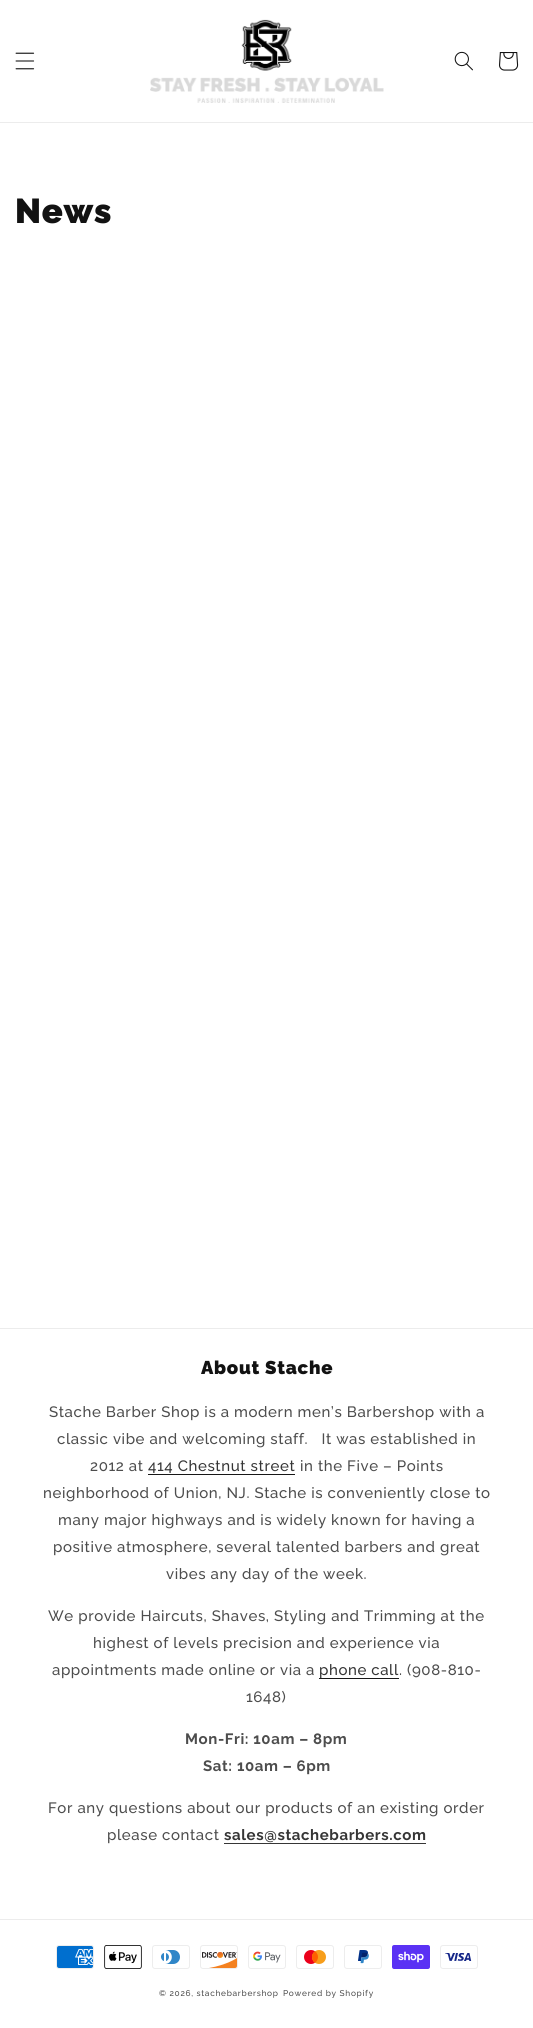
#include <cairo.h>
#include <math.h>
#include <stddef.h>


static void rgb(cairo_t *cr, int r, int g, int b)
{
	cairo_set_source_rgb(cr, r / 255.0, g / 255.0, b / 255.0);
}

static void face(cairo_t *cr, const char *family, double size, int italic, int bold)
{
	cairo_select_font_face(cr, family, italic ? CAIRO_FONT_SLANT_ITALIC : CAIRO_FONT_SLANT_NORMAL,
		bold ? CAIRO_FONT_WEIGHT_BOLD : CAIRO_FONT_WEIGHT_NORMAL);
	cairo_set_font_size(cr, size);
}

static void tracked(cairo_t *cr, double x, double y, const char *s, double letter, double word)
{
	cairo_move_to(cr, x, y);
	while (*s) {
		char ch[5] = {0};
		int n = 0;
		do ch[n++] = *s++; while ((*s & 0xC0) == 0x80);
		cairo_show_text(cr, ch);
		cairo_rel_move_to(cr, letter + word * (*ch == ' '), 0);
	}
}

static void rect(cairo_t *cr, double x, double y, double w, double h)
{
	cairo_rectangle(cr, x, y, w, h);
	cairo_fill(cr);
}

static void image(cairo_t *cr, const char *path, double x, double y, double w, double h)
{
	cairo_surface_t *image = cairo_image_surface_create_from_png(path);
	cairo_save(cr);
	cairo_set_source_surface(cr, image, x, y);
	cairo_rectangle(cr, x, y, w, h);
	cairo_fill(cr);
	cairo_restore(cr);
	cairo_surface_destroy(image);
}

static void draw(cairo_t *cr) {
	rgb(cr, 255, 255, 255);
	cairo_paint(cr);
	rgb(cr, 236, 236, 236);
	rect(cr, 0, 122, 533, 1);
	image(cr, "image0.png", 15, 52, 20, 18);
	image(cr, "image1.png", 150, 19, 234, 84);
	image(cr, "image2.png", 454, 51, 19, 20);
	image(cr, "image3.png", 499, 52, 20, 19);
	face(cr, "Raleway Black", 34.5, 0, 0);
	rgb(cr, 18, 18, 18);
	tracked(cr, 15, 223, "News", 0.75, 0);
	rgb(cr, 236, 236, 236);
	rect(cr, 0, 1328, 533, 1);
	face(cr, "Raleway Black", 18.5, 0, 0);
	rgb(cr, 18, 18, 18);
	tracked(cr, 201, 1374, "About Stache", 0.75, 0);
	face(cr, "Raleway Medium", 15, 0, 0);
	rgb(cr, 77, 77, 77);
	tracked(cr, 49, 1417, "Stache Barber Shop is a modern men’s Barbershop with a", 0.6, 0);
	tracked(cr, 57, 1444, "classic vibe and welcoming staff.   It was established in", 0.6, 0);
	tracked(cr, 90, 1471, "2012 at", 0.6, 0);
	rgb(cr, 54, 54, 54);
	tracked(cr, 148, 1471, "414 Chestnut street", 0.6, 0);
	rgb(cr, 23, 23, 23);
	rect(cr, 148, 1474, 147, 1);
	rgb(cr, 77, 77, 77);
	tracked(cr, 300, 1471, "in the Five – Points", 0.6, 0);
	tracked(cr, 43, 1498, "neighborhood of Union, NJ. Stache is conveniently close to", 0.6, 0);
	tracked(cr, 58, 1525, "many major highways and is widely known for having a", 0.6, 0);
	tracked(cr, 53, 1552, "positive atmosphere, several talented barbers and great", 0.6, 0);
	tracked(cr, 166, 1579, "vibes any day of the week.", 0.6, 0);
	tracked(cr, 48, 1621, "We provide Haircuts, Shaves, Styling and Trimming at the", 0.6, 0);
	tracked(cr, 93, 1648, "highest of levels precision and experience via", 0.6, 0);
	tracked(cr, 52, 1675, "appointments made online or via a", 0.6, 0);
	rgb(cr, 23, 23, 23);
	rect(cr, 319, 1678, 80, 1);
	rgb(cr, 54, 54, 54);
	tracked(cr, 319, 1675, "phone call", 0.6, 0);
	rgb(cr, 77, 77, 77);
	tracked(cr, 399, 1675, ". (908-810-", 0.6, 0);
	tracked(cr, 246, 1702, "1648)", 0.6, 0);
	face(cr, "Raleway", 15, 0, 1);
	tracked(cr, 185, 1744, "Mon-Fri: 10am – 8pm", 0.6, 0);
	tracked(cr, 203, 1771, "Sat: 10am – 6pm", 0.6, 0);
	face(cr, "Raleway Medium", 15, 0, 0);
	tracked(cr, 48, 1813, "For any questions about our products of an existing order", 0.6, 0);
	tracked(cr, 107, 1840, "please contact", 0.6, 0);
	face(cr, "Raleway", 15, 0, 1);
	rgb(cr, 54, 54, 54);
	tracked(cr, 224, 1840, "sales@stachebarbers.com", 0.6, 0);
	rect(cr, 224, 1843, 202, 1);
	rgb(cr, 236, 236, 236);
	rect(cr, 0, 1919, 533, 1);
	image(cr, "image4.png", 56, 1945, 38, 24);
	image(cr, "image5.png", 104, 1945, 38, 24);
	image(cr, "image6.png", 152, 1945, 38, 24);
	image(cr, "image7.png", 200, 1945, 38, 24);
	image(cr, "image8.png", 248, 1945, 38, 24);
	image(cr, "image9.png", 296, 1945, 38, 24);
	image(cr, "image10.png", 344, 1945, 38, 24);
	image(cr, "image11.png", 392, 1945, 38, 24);
	image(cr, "image12.png", 440, 1945, 38, 24);
	face(cr, "Raleway Medium", 8.3, 0, 0);
	rgb(cr, 77, 77, 77);
	tracked(cr, 159, 1996, "© 2026, stachebarbershop", 0.7, 0);
	tracked(cr, 283, 1996, "Powered by Shopify", 0.7, 0);
}

int main(void) {
	cairo_surface_t *surface = cairo_image_surface_create(CAIRO_FORMAT_RGB24, 533, 2028);
	cairo_t *cr = cairo_create(surface);
	cairo_font_options_t *options = cairo_font_options_create();
	cairo_font_options_set_hint_metrics(options, CAIRO_HINT_METRICS_OFF);
	cairo_font_options_set_hint_style(options, CAIRO_HINT_STYLE_NONE);
	cairo_set_font_options(cr, options);
	cairo_set_miter_limit(cr, 4);
	draw(cr);
	cairo_surface_write_to_png(surface, "render.png");
	cairo_font_options_destroy(options);
	cairo_destroy(cr);
	cairo_surface_destroy(surface);
	return 0;
}
